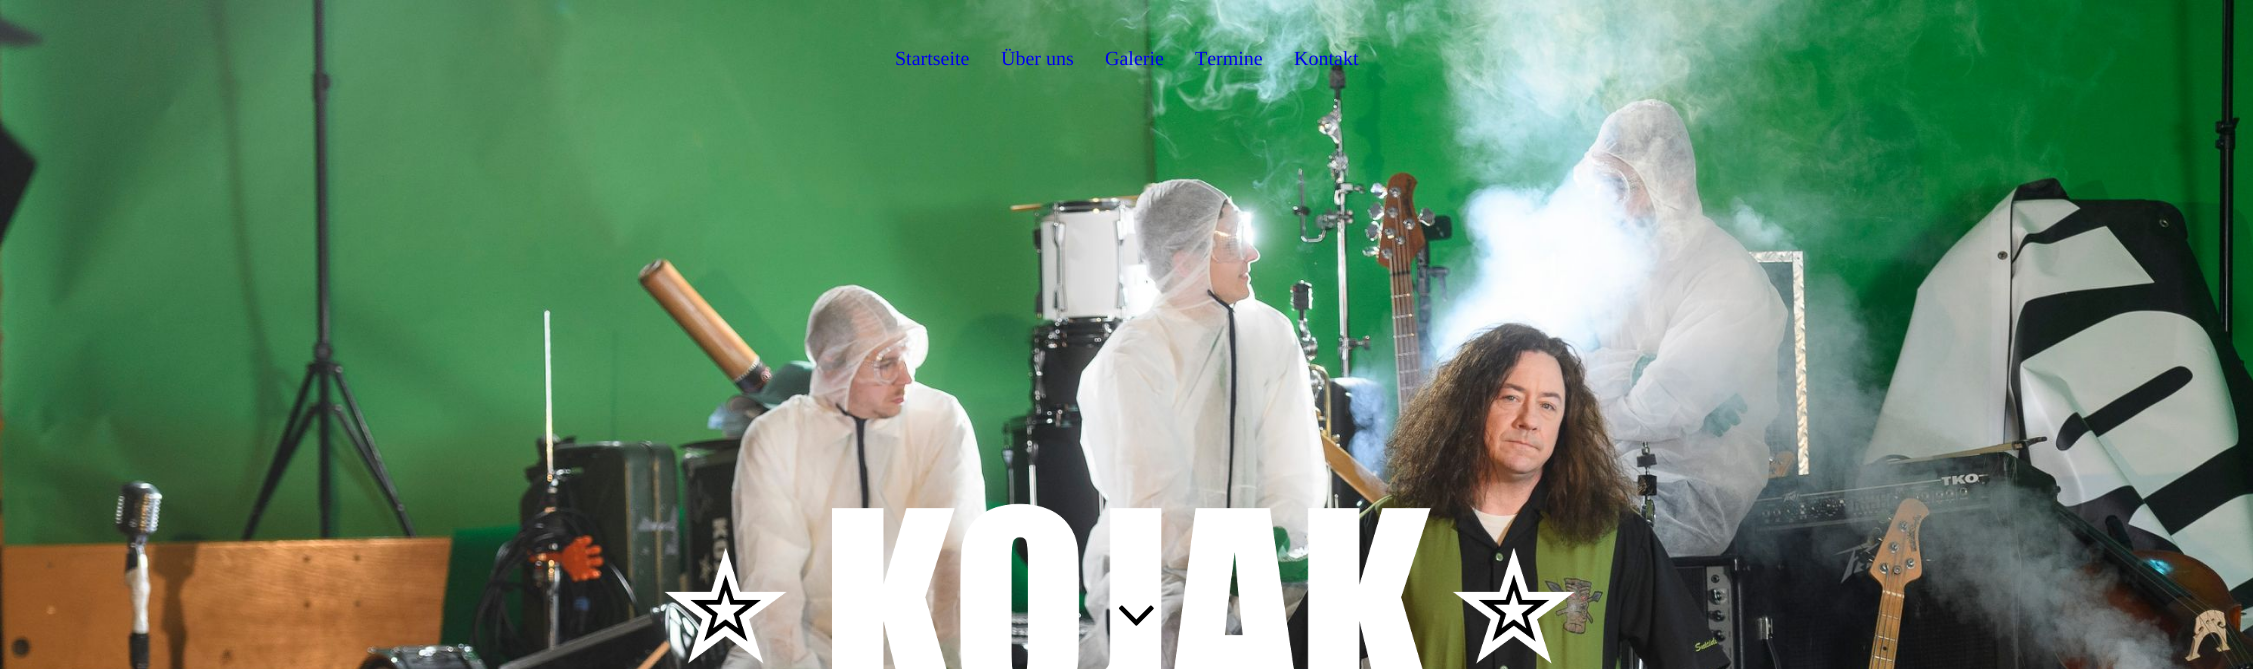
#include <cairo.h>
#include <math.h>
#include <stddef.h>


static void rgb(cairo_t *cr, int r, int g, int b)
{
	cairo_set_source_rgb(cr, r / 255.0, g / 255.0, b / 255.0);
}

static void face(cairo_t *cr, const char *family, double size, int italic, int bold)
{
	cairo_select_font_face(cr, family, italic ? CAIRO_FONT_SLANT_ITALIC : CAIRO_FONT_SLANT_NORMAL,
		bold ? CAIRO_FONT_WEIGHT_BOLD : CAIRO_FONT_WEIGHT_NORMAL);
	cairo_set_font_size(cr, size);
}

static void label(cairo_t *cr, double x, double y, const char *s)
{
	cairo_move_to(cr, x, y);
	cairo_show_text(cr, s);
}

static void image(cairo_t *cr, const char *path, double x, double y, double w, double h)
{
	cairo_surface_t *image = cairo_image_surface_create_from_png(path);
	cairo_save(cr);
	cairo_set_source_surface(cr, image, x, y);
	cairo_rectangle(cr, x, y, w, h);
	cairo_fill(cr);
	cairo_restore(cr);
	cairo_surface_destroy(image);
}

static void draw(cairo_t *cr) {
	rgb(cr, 255, 255, 255);
	cairo_paint(cr);
	image(cr, "image0.png", 0, 0, 2253, 669);
	image(cr, "image1.png", 664, 503, 911, 166);
	image(cr, "image2.png", 1119, 605, 35, 21);
	face(cr, "Liberation Serif", 20, 0, 0);
	rgb(cr, 0, 0, 238);
	label(cr, 895, 65, "Startseite");
	label(cr, 1001, 65, "Über uns");
	label(cr, 1105, 65, "Galerie");
	label(cr, 1195, 65, "Termine");
	label(cr, 1294, 65, "Kontakt");
}

int main(void) {
	cairo_surface_t *surface = cairo_image_surface_create(CAIRO_FORMAT_RGB24, 2253, 669);
	cairo_t *cr = cairo_create(surface);
	cairo_font_options_t *options = cairo_font_options_create();
	cairo_font_options_set_hint_metrics(options, CAIRO_HINT_METRICS_OFF);
	cairo_font_options_set_hint_style(options, CAIRO_HINT_STYLE_NONE);
	cairo_set_font_options(cr, options);
	cairo_set_miter_limit(cr, 4);
	draw(cr);
	cairo_surface_write_to_png(surface, "render.png");
	cairo_font_options_destroy(options);
	cairo_destroy(cr);
	cairo_surface_destroy(surface);
	return 0;
}
